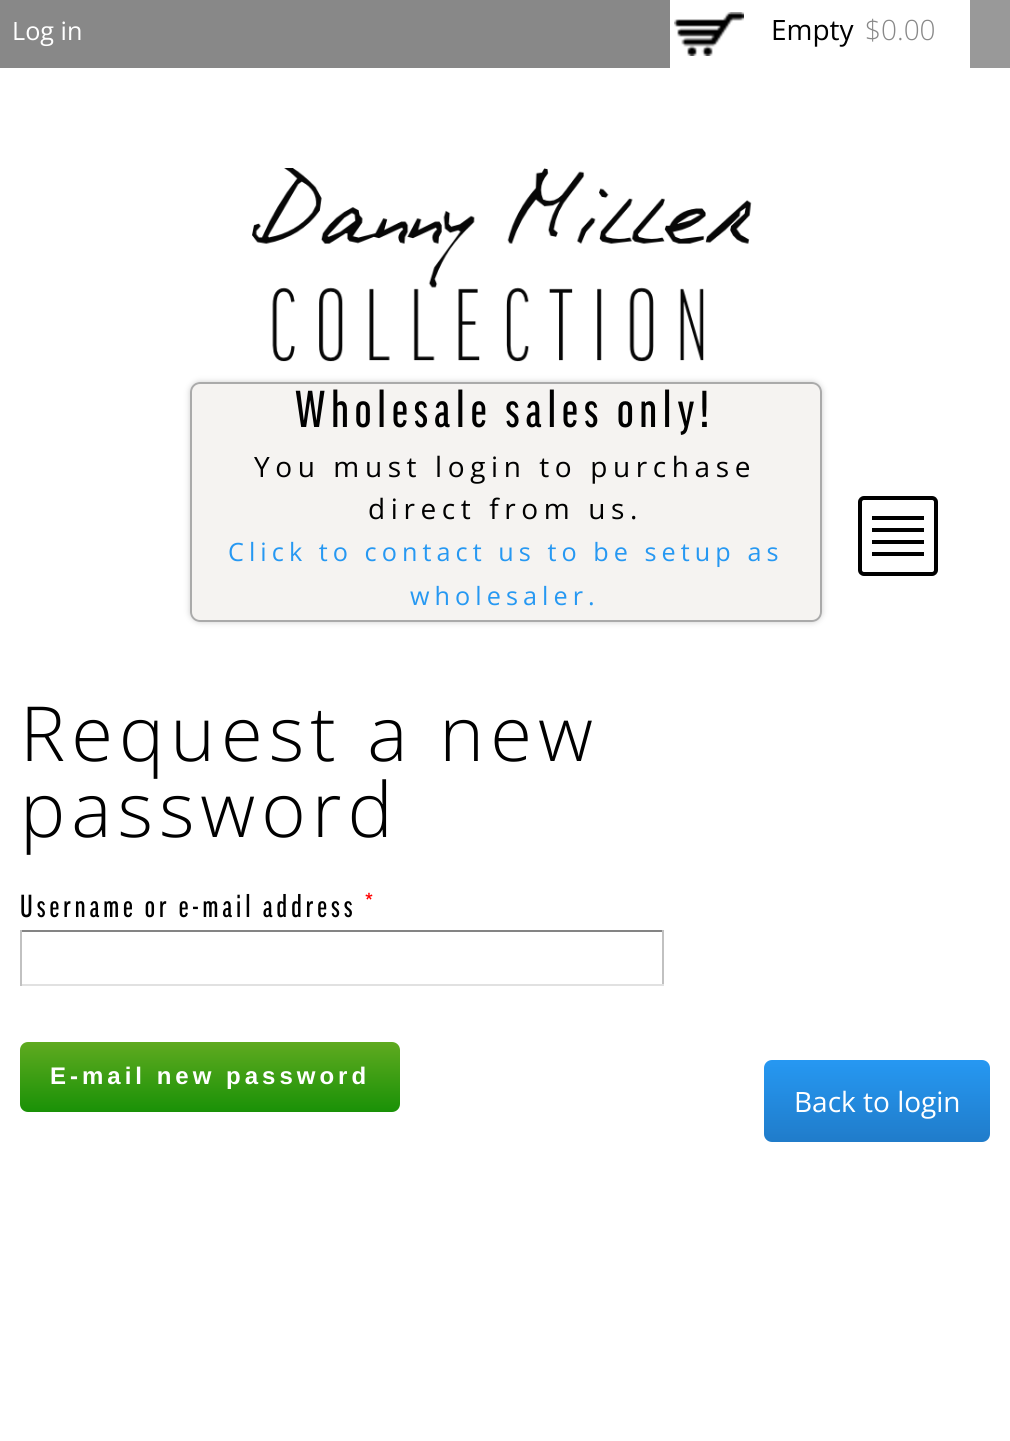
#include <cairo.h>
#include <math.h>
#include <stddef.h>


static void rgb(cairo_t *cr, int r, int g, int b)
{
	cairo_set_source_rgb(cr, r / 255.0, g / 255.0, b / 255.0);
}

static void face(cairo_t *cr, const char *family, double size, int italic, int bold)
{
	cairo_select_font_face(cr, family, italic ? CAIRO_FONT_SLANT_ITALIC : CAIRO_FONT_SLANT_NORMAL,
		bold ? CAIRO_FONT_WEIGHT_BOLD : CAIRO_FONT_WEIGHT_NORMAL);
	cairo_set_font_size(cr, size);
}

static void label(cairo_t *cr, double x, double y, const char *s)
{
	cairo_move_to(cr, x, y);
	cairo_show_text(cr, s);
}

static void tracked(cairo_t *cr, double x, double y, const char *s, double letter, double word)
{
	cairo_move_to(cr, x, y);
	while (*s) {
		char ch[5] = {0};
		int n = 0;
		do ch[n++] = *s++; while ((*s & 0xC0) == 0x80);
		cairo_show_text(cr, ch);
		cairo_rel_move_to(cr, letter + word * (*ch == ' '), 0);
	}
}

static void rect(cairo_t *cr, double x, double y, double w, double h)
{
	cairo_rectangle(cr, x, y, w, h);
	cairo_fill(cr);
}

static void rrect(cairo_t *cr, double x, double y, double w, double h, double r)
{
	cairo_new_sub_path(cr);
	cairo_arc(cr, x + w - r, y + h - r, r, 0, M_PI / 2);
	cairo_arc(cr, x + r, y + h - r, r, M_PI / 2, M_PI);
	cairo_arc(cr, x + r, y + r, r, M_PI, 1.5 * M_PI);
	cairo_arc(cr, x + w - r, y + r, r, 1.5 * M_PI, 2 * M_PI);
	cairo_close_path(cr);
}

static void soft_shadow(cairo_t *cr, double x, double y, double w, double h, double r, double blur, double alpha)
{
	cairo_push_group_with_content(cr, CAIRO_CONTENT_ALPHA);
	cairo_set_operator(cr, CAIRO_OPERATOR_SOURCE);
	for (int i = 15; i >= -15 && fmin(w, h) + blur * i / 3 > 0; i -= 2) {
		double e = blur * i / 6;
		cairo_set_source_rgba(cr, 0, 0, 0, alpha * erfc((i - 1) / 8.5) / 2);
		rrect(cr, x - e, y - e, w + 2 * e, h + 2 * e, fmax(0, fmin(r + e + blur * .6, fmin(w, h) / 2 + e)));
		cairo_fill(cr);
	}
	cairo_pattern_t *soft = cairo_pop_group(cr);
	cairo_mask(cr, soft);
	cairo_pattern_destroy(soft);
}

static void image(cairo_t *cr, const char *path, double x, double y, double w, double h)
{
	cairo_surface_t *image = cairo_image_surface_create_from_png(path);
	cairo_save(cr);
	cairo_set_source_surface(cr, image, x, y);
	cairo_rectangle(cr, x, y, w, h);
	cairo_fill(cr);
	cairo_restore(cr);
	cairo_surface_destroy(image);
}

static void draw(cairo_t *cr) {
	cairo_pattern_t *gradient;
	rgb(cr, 255, 255, 255);
	cairo_paint(cr);
	rgb(cr, 136, 136, 136);
	rect(cr, 0, 0, 670, 68);
	face(cr, "Open Sans", 25.2, 0, 0);
	rgb(cr, 255, 255, 255);
	label(cr, 12, 40, "Log in");
	image(cr, "image0.png", 674, 12, 70, 44);
	face(cr, "Open Sans", 28, 0, 0);
	rgb(cr, 0, 0, 0);
	label(cr, 771, 40, "Empty");
	face(cr, "Open Sans Light", 28, 0, 0);
	rgb(cr, 136, 136, 136);
	label(cr, 865, 40, "$0.00");
	rgb(cr, 153, 153, 153);
	rect(cr, 970, 0, 40, 68);
	image(cr, "image1.png", 252, 168, 500, 194);
	cairo_save(cr);
	cairo_set_fill_rule(cr, CAIRO_FILL_RULE_EVEN_ODD);
	cairo_new_path(cr);
	cairo_move_to(cr, 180, 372);
	cairo_line_to(cr, 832, 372);
	cairo_line_to(cr, 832, 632);
	cairo_line_to(cr, 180, 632);
	cairo_close_path(cr);
	cairo_move_to(cr, 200, 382);
	cairo_line_to(cr, 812, 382);
	cairo_curve_to(cr, 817.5, 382, 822, 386.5, 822, 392);
	cairo_line_to(cr, 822, 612);
	cairo_curve_to(cr, 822, 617.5, 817.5, 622, 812, 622);
	cairo_line_to(cr, 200, 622);
	cairo_curve_to(cr, 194.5, 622, 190, 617.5, 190, 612);
	cairo_line_to(cr, 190, 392);
	cairo_curve_to(cr, 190, 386.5, 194.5, 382, 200, 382);
	cairo_close_path(cr);
	cairo_clip(cr);
	rgb(cr, 204, 204, 204);
	soft_shadow(cr, 190, 382, 632, 240, 10, 3, 1);
	cairo_restore(cr);
	cairo_set_source_rgba(cr, 0.733, 0.682, 0.639, 0.15);
	rrect(cr, 191, 383, 630, 238, 9);
	cairo_fill_preserve(cr);
	rgb(cr, 170, 170, 170);
	cairo_stroke(cr);
	face(cr, "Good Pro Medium", 50, 0, 0);
	rgb(cr, 0, 0, 0);
	tracked(cr, 295, 427, "Wholesale sales only!", 6, 0);
	face(cr, "Open Sans", 28, 0, 0);
	tracked(cr, 254, 477, "You must login to purchase", 5.6, 0);
	tracked(cr, 368, 519, "direct from us.", 5.6, 0);
	face(cr, "Open Sans", 25.2, 0, 0);
	rgb(cr, 38, 152, 242);
	tracked(cr, 228, 561, "Click to contact us to be setup as", 5.05, 0);
	tracked(cr, 410, 605, "wholesaler.", 5.05, 0);
	rrect(cr, 860, 498, 76, 76, 4);
	rgb(cr, 0, 0, 0);
	cairo_set_line_width(cr, 4);
	cairo_stroke(cr);
	rect(cr, 872, 516, 52, 4);
	rect(cr, 872, 528, 52, 4);
	rect(cr, 872, 540, 52, 4);
	rect(cr, 872, 552, 52, 4);
	face(cr, "Open Sans Light", 76, 0, 0);
	tracked(cr, 20, 761, "Request a new", 6, 0);
	tracked(cr, 20, 837, "password", 6, 0);
	face(cr, "Good Pro Medium", 30.75, 0, 0);
	tracked(cr, 20, 917, "Username or e-mail address", 4, 0);
	rgb(cr, 255, 0, 0);
	tracked(cr, 365, 917, "*", 4, 0);
	rgb(cr, 132, 132, 132);
	rect(cr, 20, 930, 644, 2);
	rgb(cr, 193, 193, 193);
	rect(cr, 662, 930, 2, 56);
	rgb(cr, 225, 225, 225);
	rect(cr, 20, 984, 644, 2);
	rgb(cr, 193, 193, 193);
	rect(cr, 20, 930, 2, 56);
	gradient = cairo_pattern_create_linear(20, 1042, 20, 1112);
	cairo_pattern_add_color_stop_rgba(gradient, 0, 0.376, 0.667, 0.125, 1);
	cairo_pattern_add_color_stop_rgba(gradient, 1, 0.098, 0.569, 0.027, 1);
	cairo_set_source(cr, gradient);
	cairo_pattern_destroy(gradient);
	rrect(cr, 20, 1042, 380, 70, 8);
	cairo_fill(cr);
	face(cr, "Liberation Sans", 24, 0, 1);
	rgb(cr, 255, 255, 255);
	tracked(cr, 50, 1084, "E-mail new password", 4, 0);
	gradient = cairo_pattern_create_linear(764, 1060, 764, 1142);
	cairo_pattern_add_color_stop_rgba(gradient, 0, 0.149, 0.596, 0.949, 1);
	cairo_pattern_add_color_stop_rgba(gradient, 1, 0.125, 0.486, 0.792, 1);
	cairo_set_source(cr, gradient);
	cairo_pattern_destroy(gradient);
	rrect(cr, 764, 1060, 226, 82, 8);
	cairo_fill(cr);
	face(cr, "Open Sans", 28, 0, 0);
	rgb(cr, 255, 255, 255);
	label(cr, 794, 1112, "Back to login");
}

int main(void) {
	cairo_surface_t *surface = cairo_image_surface_create(CAIRO_FORMAT_RGB24, 1010, 1441);
	cairo_t *cr = cairo_create(surface);
	cairo_font_options_t *options = cairo_font_options_create();
	cairo_font_options_set_hint_metrics(options, CAIRO_HINT_METRICS_OFF);
	cairo_font_options_set_hint_style(options, CAIRO_HINT_STYLE_NONE);
	cairo_set_font_options(cr, options);
	cairo_set_miter_limit(cr, 4);
	draw(cr);
	cairo_surface_write_to_png(surface, "render.png");
	cairo_font_options_destroy(options);
	cairo_destroy(cr);
	cairo_surface_destroy(surface);
	return 0;
}
